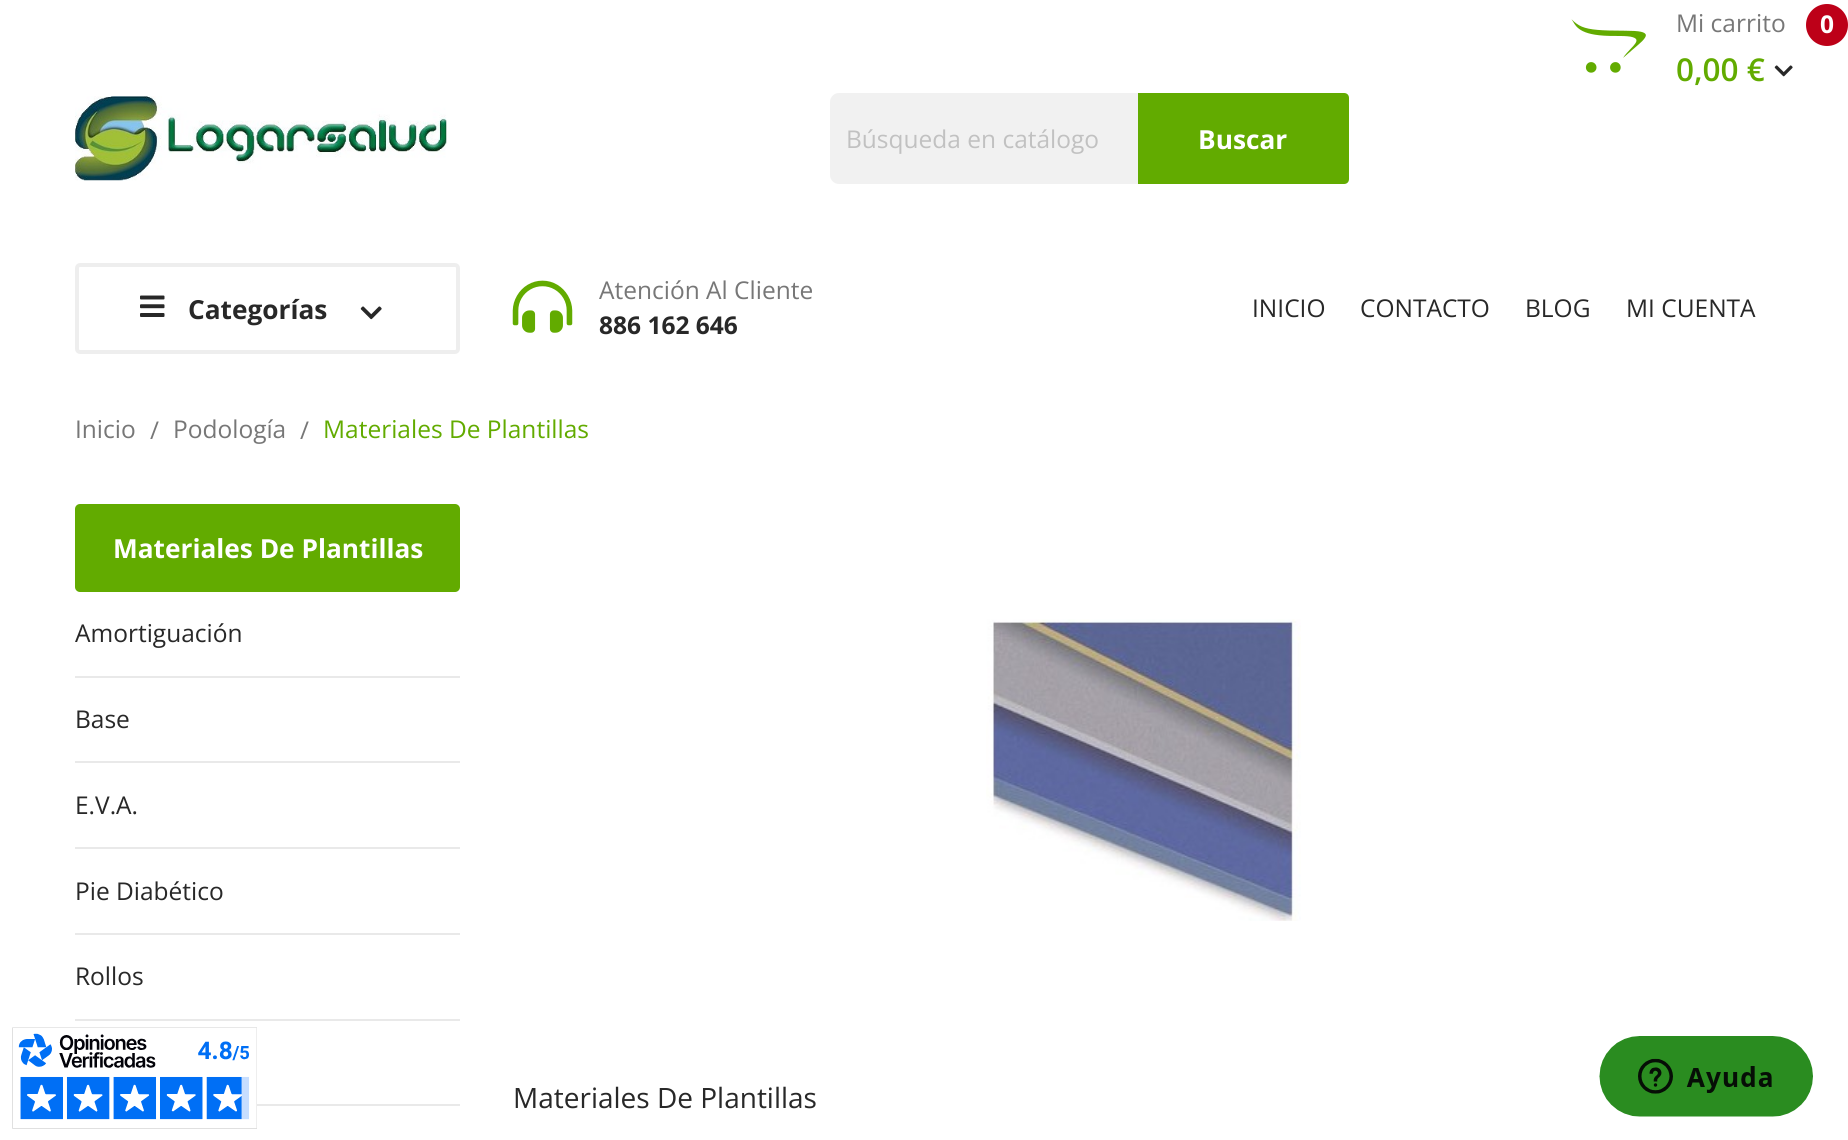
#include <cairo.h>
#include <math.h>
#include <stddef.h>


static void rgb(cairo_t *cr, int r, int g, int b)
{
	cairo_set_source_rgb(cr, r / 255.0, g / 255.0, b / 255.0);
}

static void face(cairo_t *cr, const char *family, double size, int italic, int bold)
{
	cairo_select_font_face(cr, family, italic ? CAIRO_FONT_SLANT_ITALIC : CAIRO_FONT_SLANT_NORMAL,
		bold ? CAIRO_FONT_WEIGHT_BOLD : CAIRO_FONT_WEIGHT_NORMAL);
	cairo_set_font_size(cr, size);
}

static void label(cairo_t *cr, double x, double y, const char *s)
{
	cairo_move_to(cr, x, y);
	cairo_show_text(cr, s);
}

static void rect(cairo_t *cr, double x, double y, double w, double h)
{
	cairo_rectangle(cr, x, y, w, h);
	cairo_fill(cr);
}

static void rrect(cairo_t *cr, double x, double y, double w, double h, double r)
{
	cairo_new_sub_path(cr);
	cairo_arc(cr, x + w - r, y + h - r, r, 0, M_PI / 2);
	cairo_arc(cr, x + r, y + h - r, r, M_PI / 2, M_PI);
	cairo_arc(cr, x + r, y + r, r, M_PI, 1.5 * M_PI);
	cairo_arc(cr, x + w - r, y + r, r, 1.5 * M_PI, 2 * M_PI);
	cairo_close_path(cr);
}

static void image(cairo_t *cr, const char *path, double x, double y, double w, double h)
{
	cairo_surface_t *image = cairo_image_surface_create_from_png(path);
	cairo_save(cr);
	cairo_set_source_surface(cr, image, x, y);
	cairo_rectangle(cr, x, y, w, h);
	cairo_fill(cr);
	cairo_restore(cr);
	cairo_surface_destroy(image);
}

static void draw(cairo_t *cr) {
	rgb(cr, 255, 255, 255);
	cairo_paint(cr);
	image(cr, "image0.png", 1571, 19, 75, 54);
	face(cr, "Open Sans", 24.5, 0, 0);
	rgb(cr, 119, 119, 119);
	label(cr, 1676, 32, "Mi carrito");
	rgb(cr, 189, 0, 24);
	cairo_new_path(cr);
	cairo_arc(cr, 1827, 25, 21, 0, 2 * M_PI);
	cairo_fill(cr);
	face(cr, "Open Sans", 24.5, 0, 1);
	rgb(cr, 255, 255, 255);
	label(cr, 1820, 33, "0");
	face(cr, "Open Sans SemiBold", 31.5, 0, 0);
	rgb(cr, 98, 171, 0);
	label(cr, 1676, 81, "0,00 €");
	image(cr, "image1.png", 1774, 65, 19, 12);
	image(cr, "image2.png", 75, 96, 372, 85);
	rgb(cr, 241, 241, 241);
	rrect(cr, 830, 93, 519, 91, 9);
	cairo_fill(cr);
	face(cr, "Open Sans", 24.5, 0, 0);
	rgb(cr, 193, 193, 193);
	label(cr, 846, 148, "Búsqueda en catálogo");
	rgb(cr, 98, 171, 0);
	cairo_new_path(cr);
	cairo_move_to(cr, 1138, 93);
	cairo_line_to(cr, 1344, 93);
	cairo_curve_to(cr, 1347, 93, 1349, 95, 1349, 98);
	cairo_line_to(cr, 1349, 179);
	cairo_curve_to(cr, 1349, 182, 1347, 184, 1344, 184);
	cairo_line_to(cr, 1138, 184);
	cairo_close_path(cr);
	cairo_fill(cr);
	face(cr, "Open Sans", 26.25, 0, 1);
	rgb(cr, 255, 255, 255);
	label(cr, 1198, 149, "Buscar");
	rrect(cr, 77, 265, 381, 87, 3);
	rgb(cr, 238, 238, 238);
	cairo_set_line_width(cr, 4);
	cairo_stroke(cr);
	image(cr, "image3.png", 140, 295, 25, 22);
	rgb(cr, 40, 40, 40);
	label(cr, 188, 319, "Categorías");
	image(cr, "image4.png", 360, 306, 22, 14);
	image(cr, "image5.png", 512, 280, 61, 53);
	face(cr, "Open Sans", 24.5, 0, 0);
	rgb(cr, 119, 119, 119);
	label(cr, 599, 299, "Atención Al Cliente");
	face(cr, "Open Sans", 24.5, 0, 1);
	rgb(cr, 40, 40, 40);
	label(cr, 599, 334, "886 162 646");
	face(cr, "Open Sans", 24.5, 0, 0);
	label(cr, 1252, 317, "INICIO");
	label(cr, 1360, 317, "CONTACTO");
	label(cr, 1525, 317, "BLOG");
	label(cr, 1626, 317, "MI CUENTA");
	rgb(cr, 119, 119, 119);
	label(cr, 75, 438, "Inicio");
	label(cr, 150, 439, "/");
	label(cr, 173, 438, "Podología");
	label(cr, 300, 439, "/");
	rgb(cr, 98, 171, 0);
	label(cr, 323, 438, "Materiales De Plantillas");
	rrect(cr, 75, 504, 385, 88, 5);
	cairo_fill(cr);
	face(cr, "Open Sans", 26.25, 0, 1);
	rgb(cr, 255, 255, 255);
	label(cr, 113, 558, "Materiales De Plantillas");
	rgb(cr, 233, 233, 233);
	rect(cr, 75, 676, 385, 2);
	face(cr, "Open Sans", 24.5, 0, 0);
	rgb(cr, 40, 40, 40);
	label(cr, 75, 642, "Amortiguación");
	rgb(cr, 233, 233, 233);
	rect(cr, 75, 761, 385, 2);
	rgb(cr, 40, 40, 40);
	label(cr, 75, 728, "Base");
	rgb(cr, 233, 233, 233);
	rect(cr, 75, 847, 385, 2);
	rgb(cr, 40, 40, 40);
	label(cr, 75, 814, "E.V.A.");
	rgb(cr, 233, 233, 233);
	rect(cr, 75, 933, 385, 2);
	rgb(cr, 40, 40, 40);
	label(cr, 75, 900, "Pie Diabético");
	rgb(cr, 233, 233, 233);
	rect(cr, 75, 1019, 385, 2);
	rgb(cr, 40, 40, 40);
	label(cr, 75, 985, "Rollos");
	rgb(cr, 233, 233, 233);
	rect(cr, 257, 1104, 203, 2);
	image(cr, "image6.png", 986, 619, 315, 302);
	face(cr, "Open Sans", 28, 0, 0);
	rgb(cr, 40, 40, 40);
	label(cr, 513, 1108, "Materiales De Plantillas");
	image(cr, "image7.png", 12, 1027, 245, 102);
	image(cr, "image8.png", 1599, 1036, 214, 81);
}

int main(void) {
	cairo_surface_t *surface = cairo_image_surface_create(CAIRO_FORMAT_RGB24, 1848, 1140);
	cairo_t *cr = cairo_create(surface);
	cairo_font_options_t *options = cairo_font_options_create();
	cairo_font_options_set_hint_metrics(options, CAIRO_HINT_METRICS_OFF);
	cairo_font_options_set_hint_style(options, CAIRO_HINT_STYLE_NONE);
	cairo_set_font_options(cr, options);
	cairo_set_miter_limit(cr, 4);
	draw(cr);
	cairo_surface_write_to_png(surface, "render.png");
	cairo_font_options_destroy(options);
	cairo_destroy(cr);
	cairo_surface_destroy(surface);
	return 0;
}
